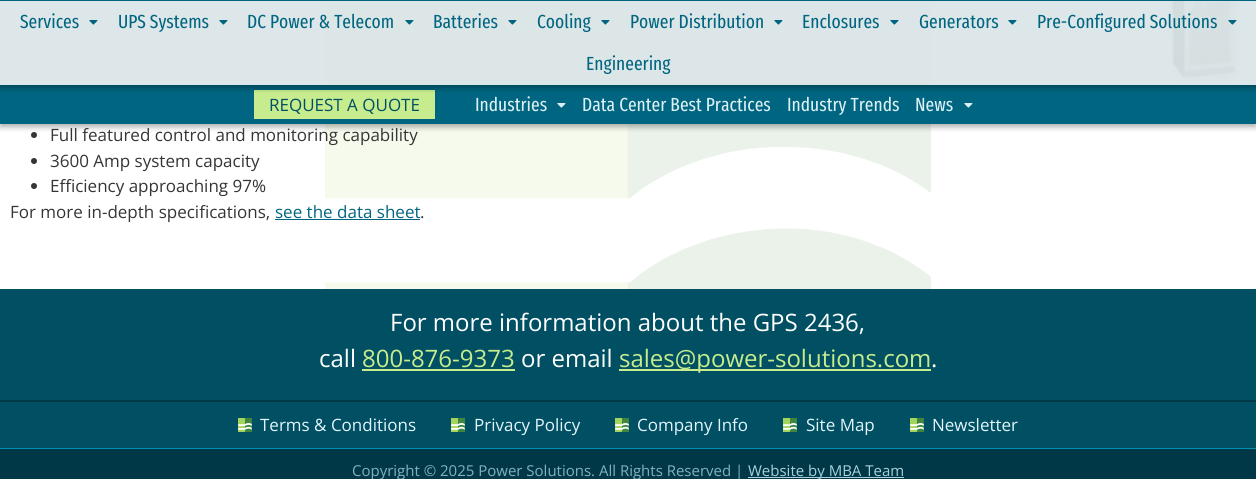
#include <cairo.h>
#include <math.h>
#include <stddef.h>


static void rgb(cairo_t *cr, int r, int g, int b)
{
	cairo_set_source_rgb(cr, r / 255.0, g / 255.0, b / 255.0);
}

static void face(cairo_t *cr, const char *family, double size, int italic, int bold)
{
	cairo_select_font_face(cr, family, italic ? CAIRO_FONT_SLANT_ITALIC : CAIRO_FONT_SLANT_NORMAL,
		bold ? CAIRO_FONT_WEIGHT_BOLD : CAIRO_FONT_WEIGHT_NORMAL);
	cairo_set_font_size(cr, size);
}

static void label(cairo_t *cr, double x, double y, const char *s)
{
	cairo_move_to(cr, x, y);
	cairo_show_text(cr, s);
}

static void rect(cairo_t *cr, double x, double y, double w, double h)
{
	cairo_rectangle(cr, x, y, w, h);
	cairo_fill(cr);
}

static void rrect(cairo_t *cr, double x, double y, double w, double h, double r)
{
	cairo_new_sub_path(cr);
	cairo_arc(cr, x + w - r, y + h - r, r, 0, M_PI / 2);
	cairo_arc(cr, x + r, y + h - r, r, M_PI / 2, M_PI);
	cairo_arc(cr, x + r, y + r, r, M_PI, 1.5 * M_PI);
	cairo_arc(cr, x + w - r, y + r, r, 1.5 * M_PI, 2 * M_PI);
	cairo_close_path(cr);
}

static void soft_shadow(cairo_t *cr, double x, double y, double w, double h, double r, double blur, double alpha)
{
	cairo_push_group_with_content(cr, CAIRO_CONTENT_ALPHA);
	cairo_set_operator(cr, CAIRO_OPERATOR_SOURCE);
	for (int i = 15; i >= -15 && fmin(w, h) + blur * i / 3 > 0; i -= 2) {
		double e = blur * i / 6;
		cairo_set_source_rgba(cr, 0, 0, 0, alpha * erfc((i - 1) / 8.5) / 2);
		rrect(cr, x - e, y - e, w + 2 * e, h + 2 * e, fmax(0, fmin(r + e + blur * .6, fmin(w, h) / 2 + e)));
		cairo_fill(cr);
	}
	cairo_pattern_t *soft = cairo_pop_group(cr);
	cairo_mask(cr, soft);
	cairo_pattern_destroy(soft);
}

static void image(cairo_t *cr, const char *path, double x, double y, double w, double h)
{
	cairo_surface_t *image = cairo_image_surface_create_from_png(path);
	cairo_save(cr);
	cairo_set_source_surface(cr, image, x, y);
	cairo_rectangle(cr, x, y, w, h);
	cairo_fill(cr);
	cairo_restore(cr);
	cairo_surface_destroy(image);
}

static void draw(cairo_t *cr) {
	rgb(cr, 255, 255, 255);
	cairo_paint(cr);
	image(cr, "image6.png", 325, 1, 606, 288);
	image(cr, "image7.png", 1165, 1, 77, 81);
	rgb(cr, 53, 53, 53);
	cairo_arc(cr, 34, 135, 3, 0, 2 * M_PI);
	cairo_fill(cr);
	rgb(cr, 0, 0, 0);
	soft_shadow(cr, 0, 88, 1256, 39, 0, 3, 0.32);
	rgb(cr, 0, 101, 128);
	rect(cr, 0, 85, 1256, 39);
	rgb(cr, 198, 236, 141);
	rect(cr, 254, 90, 181, 29);
	cairo_save(cr);
	cairo_rectangle(cr, 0, 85, 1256, 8);
	cairo_clip(cr);
	rgb(cr, 0, 0, 0);
	soft_shadow(cr, 0, 3, 1256, 85, 0, 3, 0.32);
	cairo_restore(cr);
	cairo_set_source_rgba(cr, 0.859, 0.898, 0.906, 0.93);
	rect(cr, 0, 1, 1256, 84);
	rgb(cr, 0, 101, 128);
	rect(cr, 0, 0, 1256, 1);
	face(cr, "Fira Sans Extra Condensed", 19, 0, 0);
	label(cr, 20, 28, "Services");
	image(cr, "image0.png", 89, 20, 9, 5);
	label(cr, 118, 28, "UPS Systems");
	image(cr, "image0.png", 219, 20, 9, 5);
	label(cr, 247, 28, "DC Power & Telecom");
	image(cr, "image1.png", 405, 20, 9, 5);
	label(cr, 433, 28, "Batteries");
	image(cr, "image2.png", 508, 20, 9, 5);
	label(cr, 537, 28, "Cooling");
	image(cr, "image2.png", 601, 20, 9, 5);
	label(cr, 630, 28, "Power Distribution");
	image(cr, "image3.png", 774, 20, 9, 5);
	label(cr, 802, 28, "Enclosures");
	image(cr, "image3.png", 890, 20, 9, 5);
	label(cr, 919, 28, "Generators");
	image(cr, "image0.png", 1008, 20, 9, 5);
	label(cr, 1037, 28, "Pre-Configured Solutions");
	image(cr, "image4.png", 1228, 20, 9, 5);
	label(cr, 586, 70, "Engineering");
	face(cr, "Open Sans", 17, 0, 0);
	rgb(cr, 0, 79, 99);
	label(cr, 269, 111, "REQUEST A QUOTE");
	face(cr, "Fira Sans Extra Condensed", 19, 0, 0);
	rgb(cr, 220, 241, 246);
	label(cr, 475, 111, "Industries");
	image(cr, "image5.png", 557, 103, 9, 5);
	label(cr, 582, 111, "Data Center Best Practices");
	label(cr, 787, 111, "Industry Trends");
	label(cr, 915, 111, "News");
	image(cr, "image5.png", 964, 103, 9, 5);
	face(cr, "Open Sans", 17, 0, 0);
	rgb(cr, 53, 53, 53);
	label(cr, 50, 141, "Full featured control and monitoring capability");
	cairo_new_path(cr);
	cairo_arc(cr, 34, 161, 3, 0, 2 * M_PI);
	cairo_fill(cr);
	label(cr, 50, 167, "3600 Amp system capacity");
	cairo_new_path(cr);
	cairo_arc(cr, 34, 186, 3, 0, 2 * M_PI);
	cairo_fill(cr);
	label(cr, 50, 192, "Efficiency approaching 97%");
	label(cr, 10, 218, "For more in-depth specifications,");
	rgb(cr, 0, 101, 128);
	label(cr, 275, 218, "see the data sheet");
	rect(cr, 275, 219, 145, 1);
	rgb(cr, 53, 53, 53);
	label(cr, 420, 218, ".");
	rgb(cr, 0, 79, 99);
	rect(cr, 0, 289, 1256, 111);
	face(cr, "Open Sans", 24, 0, 0);
	rgb(cr, 255, 255, 255);
	label(cr, 390, 331, "For more information about the GPS 2436,");
	label(cr, 319, 367, "call");
	rgb(cr, 198, 236, 141);
	label(cr, 362, 367, "800-876-9373");
	rect(cr, 362, 369, 153, 2);
	rgb(cr, 255, 255, 255);
	label(cr, 521, 367, "or email");
	rgb(cr, 198, 236, 141);
	rect(cr, 619, 369, 312, 2);
	label(cr, 619, 367, "sales@power-solutions.com");
	rgb(cr, 255, 255, 255);
	label(cr, 931, 367, ".");
	rgb(cr, 0, 79, 99);
	rect(cr, 0, 402, 1256, 46);
	rgb(cr, 0, 56, 71);
	rect(cr, 0, 400, 1256, 2);
	image(cr, "image8.png", 238, 418, 14, 14);
	face(cr, "Open Sans", 17, 0, 0);
	rgb(cr, 227, 245, 251);
	label(cr, 260, 431, "Terms & Conditions");
	image(cr, "image8.png", 451, 418, 14, 14);
	label(cr, 474, 431, "Privacy Policy");
	image(cr, "image8.png", 615, 418, 14, 14);
	label(cr, 637, 431, "Company Info");
	image(cr, "image8.png", 783, 418, 14, 14);
	label(cr, 806, 431, "Site Map");
	image(cr, "image8.png", 910, 418, 14, 14);
	label(cr, 932, 431, "Newsletter");
	rgb(cr, 0, 56, 71);
	rect(cr, 0, 449, 1256, 30);
	rgb(cr, 0, 144, 180);
	rect(cr, 0, 448, 1256, 1);
	face(cr, "Open Sans", 15, 0, 0);
	rgb(cr, 127, 178, 191);
	label(cr, 352, 476, "Copyright © 2025 Power Solutions. All Rights Reserved |");
	rgb(cr, 168, 209, 219);
	rect(cr, 748, 477, 156, 1);
	label(cr, 748, 476, "Website by MBA Team");
}

int main(void) {
	cairo_surface_t *surface = cairo_image_surface_create(CAIRO_FORMAT_RGB24, 1256, 479);
	cairo_t *cr = cairo_create(surface);
	cairo_font_options_t *options = cairo_font_options_create();
	cairo_font_options_set_hint_metrics(options, CAIRO_HINT_METRICS_OFF);
	cairo_font_options_set_hint_style(options, CAIRO_HINT_STYLE_NONE);
	cairo_set_font_options(cr, options);
	cairo_set_miter_limit(cr, 4);
	draw(cr);
	cairo_surface_write_to_png(surface, "render.png");
	cairo_font_options_destroy(options);
	cairo_destroy(cr);
	cairo_surface_destroy(surface);
	return 0;
}
